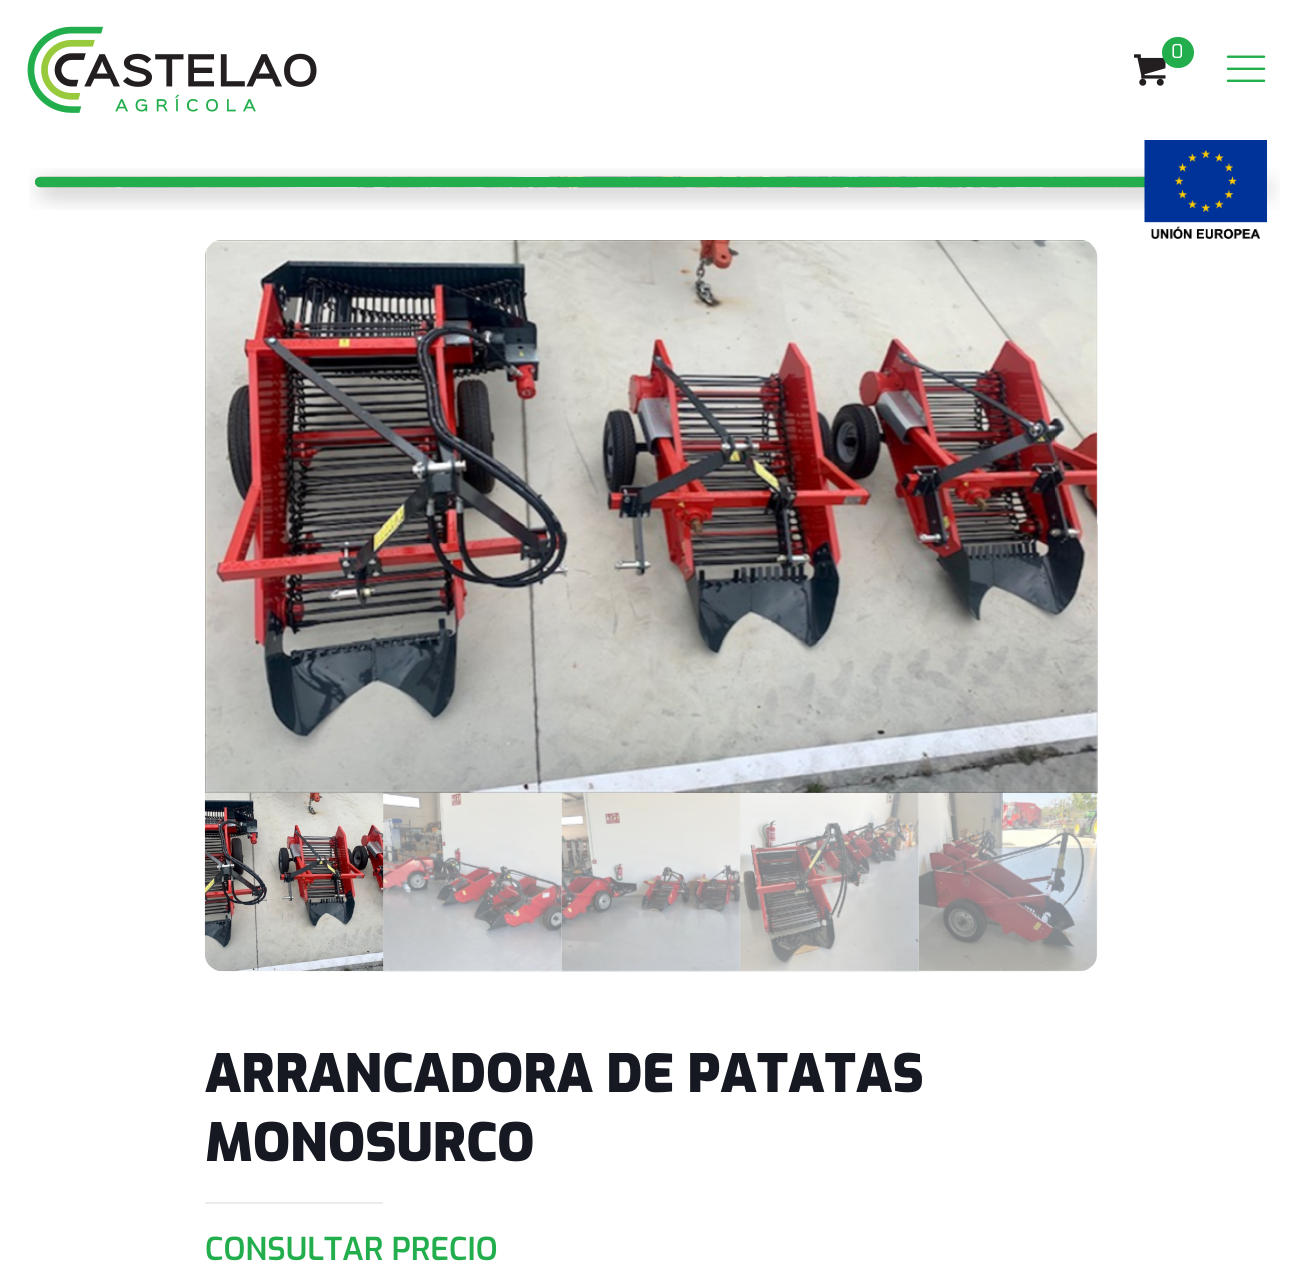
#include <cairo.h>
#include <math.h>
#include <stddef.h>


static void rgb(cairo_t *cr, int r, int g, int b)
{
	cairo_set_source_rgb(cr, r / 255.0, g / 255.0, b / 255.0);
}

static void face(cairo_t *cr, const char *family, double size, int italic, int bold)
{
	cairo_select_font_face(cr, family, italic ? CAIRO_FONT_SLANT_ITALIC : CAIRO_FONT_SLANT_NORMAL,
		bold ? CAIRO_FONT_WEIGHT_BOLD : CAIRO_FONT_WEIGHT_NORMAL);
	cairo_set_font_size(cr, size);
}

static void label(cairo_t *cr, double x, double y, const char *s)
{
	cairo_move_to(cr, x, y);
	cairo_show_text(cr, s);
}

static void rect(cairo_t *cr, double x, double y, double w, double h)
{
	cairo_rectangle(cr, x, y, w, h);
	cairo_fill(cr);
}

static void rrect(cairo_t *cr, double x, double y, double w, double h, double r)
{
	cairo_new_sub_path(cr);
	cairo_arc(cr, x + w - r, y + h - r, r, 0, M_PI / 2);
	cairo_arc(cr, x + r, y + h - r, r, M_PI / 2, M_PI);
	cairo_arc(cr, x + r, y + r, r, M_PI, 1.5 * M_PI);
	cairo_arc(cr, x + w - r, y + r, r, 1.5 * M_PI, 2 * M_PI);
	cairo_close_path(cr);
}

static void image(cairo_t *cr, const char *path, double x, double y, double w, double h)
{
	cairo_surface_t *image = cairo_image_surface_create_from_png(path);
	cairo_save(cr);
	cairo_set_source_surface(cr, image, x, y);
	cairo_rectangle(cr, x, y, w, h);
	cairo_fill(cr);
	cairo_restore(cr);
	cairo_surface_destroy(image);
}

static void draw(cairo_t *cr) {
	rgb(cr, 255, 255, 255);
	cairo_paint(cr);
	image(cr, "image0.png", 27, 26, 290, 87);
	image(cr, "image1.png", 1226, 55, 40, 27);
	image(cr, "image2.png", 1134, 54, 32, 32);
	rgb(cr, 34, 174, 76);
	rrect(cr, 1162, 37, 32, 31, 15.5);
	cairo_fill(cr);
	face(cr, "Exo", 19, 0, 0);
	rgb(cr, 255, 255, 255);
	label(cr, 1171, 58, "0");
	image(cr, "image3.png", 29, 168, 1251, 42);
	rgb(cr, 34, 174, 76);
	rrect(cr, 35, 177, 1232, 10, 5);
	cairo_fill(cr);
	image(cr, "image4.png", 205, 240, 893, 553);
	image(cr, "image5.png", 204, 792, 180, 180);
	image(cr, "image6.png", 383, 792, 179, 180);
	image(cr, "image7.png", 561, 792, 180, 180);
	image(cr, "image8.png", 740, 792, 179, 180);
	image(cr, "image9.png", 918, 792, 180, 180);
	face(cr, "Exo Black", 52.5, 0, 0);
	rgb(cr, 22, 25, 34);
	label(cr, 205, 1092, "ARRANCADORA DE PATATAS");
	label(cr, 205, 1161, "MONOSURCO");
	rgb(cr, 235, 235, 235);
	rect(cr, 205, 1202, 178, 2);
	face(cr, "Exo SemiBold", 31.5, 0, 0);
	rgb(cr, 34, 174, 76);
	label(cr, 205, 1260, "CONSULTAR PRECIO");
	image(cr, "image10.png", 1144, 140, 123, 99);
}

int main(void) {
	cairo_surface_t *surface = cairo_image_surface_create(CAIRO_FORMAT_RGB24, 1302, 1266);
	cairo_t *cr = cairo_create(surface);
	cairo_font_options_t *options = cairo_font_options_create();
	cairo_font_options_set_hint_metrics(options, CAIRO_HINT_METRICS_OFF);
	cairo_font_options_set_hint_style(options, CAIRO_HINT_STYLE_NONE);
	cairo_set_font_options(cr, options);
	cairo_set_miter_limit(cr, 4);
	draw(cr);
	cairo_surface_write_to_png(surface, "render.png");
	cairo_font_options_destroy(options);
	cairo_destroy(cr);
	cairo_surface_destroy(surface);
	return 0;
}
